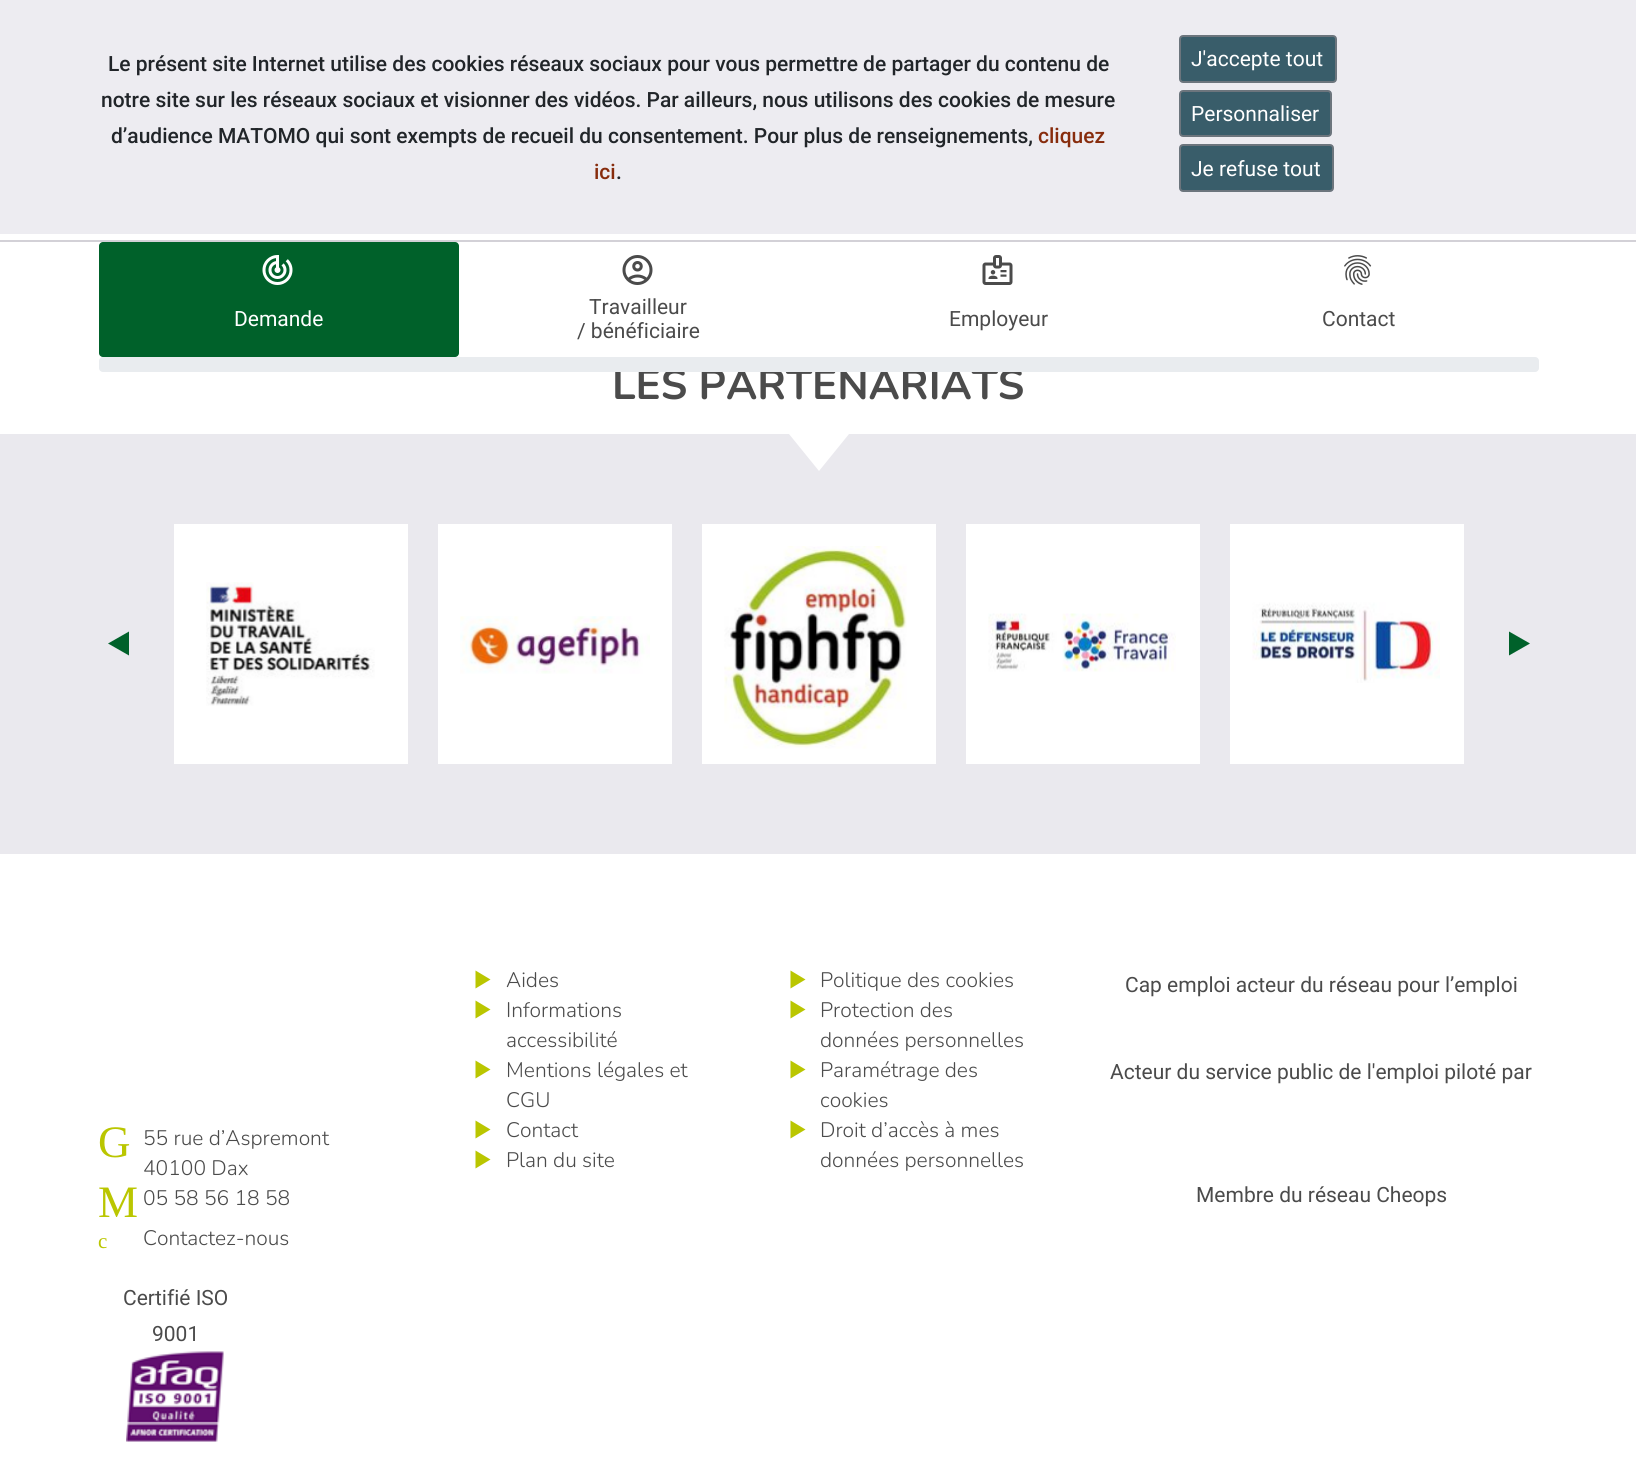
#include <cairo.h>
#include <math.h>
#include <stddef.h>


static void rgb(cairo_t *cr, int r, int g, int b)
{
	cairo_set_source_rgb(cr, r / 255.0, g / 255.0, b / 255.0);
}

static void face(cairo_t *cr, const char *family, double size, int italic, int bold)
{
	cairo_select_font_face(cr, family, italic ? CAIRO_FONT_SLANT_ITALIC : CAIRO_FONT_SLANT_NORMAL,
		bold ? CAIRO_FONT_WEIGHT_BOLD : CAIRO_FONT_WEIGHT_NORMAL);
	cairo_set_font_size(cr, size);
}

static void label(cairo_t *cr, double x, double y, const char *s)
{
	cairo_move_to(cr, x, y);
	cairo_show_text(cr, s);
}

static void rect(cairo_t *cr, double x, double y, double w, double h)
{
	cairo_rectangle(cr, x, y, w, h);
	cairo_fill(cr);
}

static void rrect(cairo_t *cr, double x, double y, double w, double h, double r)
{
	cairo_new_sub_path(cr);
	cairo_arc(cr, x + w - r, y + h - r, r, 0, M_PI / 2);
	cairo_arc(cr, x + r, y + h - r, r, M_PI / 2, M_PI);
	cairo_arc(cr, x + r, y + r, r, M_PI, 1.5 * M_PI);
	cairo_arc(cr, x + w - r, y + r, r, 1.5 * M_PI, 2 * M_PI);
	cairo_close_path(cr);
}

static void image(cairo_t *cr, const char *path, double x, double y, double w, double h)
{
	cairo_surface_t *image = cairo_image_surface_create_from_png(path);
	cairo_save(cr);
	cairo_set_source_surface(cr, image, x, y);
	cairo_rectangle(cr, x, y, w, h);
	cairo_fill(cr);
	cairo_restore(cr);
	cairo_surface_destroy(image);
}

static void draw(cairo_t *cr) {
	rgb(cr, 255, 255, 255);
	cairo_paint(cr);
	rgb(cr, 237, 236, 241);
	rect(cr, 0, 0, 1636, 234);
	face(cr, "Roboto Medium", 21, 0, 0);
	rgb(cr, 33, 37, 41);
	label(cr, 108, 71, "Le présent site Internet utilise des cookies réseaux sociaux pour vous permettre de partager du contenu de");
	label(cr, 101, 107, "notre site sur les réseaux sociaux et visionner des vidéos. Par ailleurs, nous utilisons des cookies de mesure");
	label(cr, 111, 143, "d’audience MATOMO qui sont exempts de recueil du consentement. Pour plus de renseignements,");
	rgb(cr, 135, 44, 13);
	label(cr, 1038, 143, "cliquez");
	label(cr, 594, 179, "ici");
	rgb(cr, 33, 37, 41);
	label(cr, 616, 179, ".");
	rgb(cr, 57, 93, 106);
	rrect(cr, 1180, 36, 156, 46, 3);
	cairo_fill_preserve(cr);
	rgb(cr, 108, 117, 125);
	cairo_stroke(cr);
	face(cr, "Roboto", 21, 0, 0);
	rgb(cr, 255, 255, 255);
	label(cr, 1191, 66, "J'accepte tout");
	rgb(cr, 57, 93, 106);
	rrect(cr, 1180, 91, 151, 45, 3);
	cairo_fill_preserve(cr);
	rgb(cr, 108, 117, 125);
	cairo_stroke(cr);
	rgb(cr, 255, 255, 255);
	label(cr, 1191, 121, "Personnaliser");
	rgb(cr, 57, 93, 106);
	rrect(cr, 1180, 145, 153, 46, 3);
	cairo_fill_preserve(cr);
	rgb(cr, 108, 117, 125);
	cairo_stroke(cr);
	rgb(cr, 255, 255, 255);
	label(cr, 1191, 176, "Je refuse tout");
	rgb(cr, 211, 209, 215);
	rect(cr, 0, 240, 1636, 2);
	face(cr, "Nunito", 42, 0, 1);
	rgb(cr, 75, 75, 75);
	label(cr, 612, 399, "LES PARTENARIATS");
	rgb(cr, 255, 255, 255);
	rect(cr, 615, 369, 407, 3);
	rgb(cr, 0, 97, 42);
	rrect(cr, 99, 242, 360, 115, 4);
	cairo_fill(cr);
	image(cr, "image0.png", 262, 255, 31, 30);
	face(cr, "Roboto", 21, 0, 0);
	rgb(cr, 255, 255, 255);
	label(cr, 234, 326, "Demande");
	image(cr, "image1.png", 622, 255, 31, 30);
	rgb(cr, 75, 75, 75);
	label(cr, 589, 314, "Travailleur");
	label(cr, 577, 338, "/ bénéficiaire");
	image(cr, "image2.png", 982, 255, 31, 30);
	label(cr, 949, 326, "Employeur");
	image(cr, "image3.png", 1344, 255, 28, 30);
	label(cr, 1322, 326, "Contact");
	rgb(cr, 233, 236, 239);
	rrect(cr, 99, 357, 1440, 15, 4);
	cairo_fill(cr);
	rgb(cr, 234, 233, 238);
	rect(cr, 0, 434, 1636, 420);
	rgb(cr, 255, 255, 255);
	cairo_new_path(cr);
	cairo_move_to(cr, 789, 434);
	cairo_line_to(cr, 849, 434);
	cairo_line_to(cr, 819, 471);
	cairo_close_path(cr);
	cairo_fill(cr);
	rect(cr, 174, 524, 234, 240);
	image(cr, "image4.png", 206, 582, 169, 124);
	rect(cr, 438, 524, 234, 240);
	image(cr, "image5.png", 460, 616, 190, 58);
	rect(cr, 702, 524, 234, 240);
	image(cr, "image6.png", 724, 546, 183, 203);
	rect(cr, 966, 524, 234, 240);
	image(cr, "image7.png", 988, 613, 188, 59);
	rect(cr, 1230, 524, 234, 240);
	image(cr, "image8.png", 1252, 602, 188, 81);
	rgb(cr, 0, 97, 42);
	cairo_new_path(cr);
	cairo_move_to(cr, 129, 631.5);
	cairo_line_to(cr, 129, 655.5);
	cairo_line_to(cr, 108, 643.5);
	cairo_close_path(cr);
	cairo_fill(cr);
	cairo_new_path(cr);
	cairo_move_to(cr, 1509, 655.5);
	cairo_line_to(cr, 1509, 631.5);
	cairo_line_to(cr, 1530, 643.5);
	cairo_close_path(cr);
	cairo_fill(cr);
	rgb(cr, 186, 198, 0);
	cairo_new_path(cr);
	cairo_move_to(cr, 475.5, 988.5);
	cairo_line_to(cr, 475.5, 970.5);
	cairo_line_to(cr, 490.5, 979.5);
	cairo_close_path(cr);
	cairo_fill(cr);
	face(cr, "Nunito Light", 21, 0, 0);
	rgb(cr, 75, 75, 75);
	label(cr, 506, 987, "Aides");
	rgb(cr, 186, 198, 0);
	cairo_new_path(cr);
	cairo_move_to(cr, 475.5, 1018.5);
	cairo_line_to(cr, 475.5, 1000.5);
	cairo_line_to(cr, 490.5, 1009.5);
	cairo_close_path(cr);
	cairo_fill(cr);
	rgb(cr, 75, 75, 75);
	label(cr, 506, 1017, "Informations");
	label(cr, 506, 1047, "accessibilité");
	rgb(cr, 186, 198, 0);
	cairo_new_path(cr);
	cairo_move_to(cr, 475.5, 1078.5);
	cairo_line_to(cr, 475.5, 1060.5);
	cairo_line_to(cr, 490.5, 1069.5);
	cairo_close_path(cr);
	cairo_fill(cr);
	rgb(cr, 75, 75, 75);
	label(cr, 506, 1077, "Mentions légales et");
	label(cr, 506, 1107, "CGU");
	rgb(cr, 186, 198, 0);
	cairo_new_path(cr);
	cairo_move_to(cr, 475.5, 1138.5);
	cairo_line_to(cr, 475.5, 1120.5);
	cairo_line_to(cr, 490.5, 1129.5);
	cairo_close_path(cr);
	cairo_fill(cr);
	rgb(cr, 75, 75, 75);
	label(cr, 506, 1137, "Contact");
	rgb(cr, 186, 198, 0);
	cairo_new_path(cr);
	cairo_move_to(cr, 475.5, 1168.5);
	cairo_line_to(cr, 475.5, 1150.5);
	cairo_line_to(cr, 490.5, 1159.5);
	cairo_close_path(cr);
	cairo_fill(cr);
	rgb(cr, 75, 75, 75);
	label(cr, 506, 1167, "Plan du site");
	rgb(cr, 186, 198, 0);
	cairo_new_path(cr);
	cairo_move_to(cr, 790.5, 988.5);
	cairo_line_to(cr, 790.5, 970.5);
	cairo_line_to(cr, 805.5, 979.5);
	cairo_close_path(cr);
	cairo_fill(cr);
	rgb(cr, 75, 75, 75);
	label(cr, 820, 987, "Politique des cookies");
	rgb(cr, 186, 198, 0);
	cairo_new_path(cr);
	cairo_move_to(cr, 790.5, 1018.5);
	cairo_line_to(cr, 790.5, 1000.5);
	cairo_line_to(cr, 805.5, 1009.5);
	cairo_close_path(cr);
	cairo_fill(cr);
	rgb(cr, 75, 75, 75);
	label(cr, 820, 1017, "Protection des");
	label(cr, 820, 1047, "données personnelles");
	rgb(cr, 186, 198, 0);
	cairo_new_path(cr);
	cairo_move_to(cr, 790.5, 1078.5);
	cairo_line_to(cr, 790.5, 1060.5);
	cairo_line_to(cr, 805.5, 1069.5);
	cairo_close_path(cr);
	cairo_fill(cr);
	rgb(cr, 75, 75, 75);
	label(cr, 820, 1077, "Paramétrage des");
	label(cr, 820, 1107, "cookies");
	rgb(cr, 186, 198, 0);
	cairo_new_path(cr);
	cairo_move_to(cr, 790.5, 1138.5);
	cairo_line_to(cr, 790.5, 1120.5);
	cairo_line_to(cr, 805.5, 1129.5);
	cairo_close_path(cr);
	cairo_fill(cr);
	rgb(cr, 75, 75, 75);
	label(cr, 820, 1137, "Droit d’accès à mes");
	label(cr, 820, 1167, "données personnelles");
	face(cr, "Roboto", 21, 0, 0);
	label(cr, 1125, 992, "Cap emploi acteur du réseau pour l’emploi");
	label(cr, 1110, 1079, "Acteur du service public de l'emploi piloté par");
	label(cr, 1196, 1202, "Membre du réseau Cheops");
	face(cr, "Liberation Serif", 45, 0, 0);
	rgb(cr, 186, 198, 0);
	label(cr, 98, 1157, "G");
	face(cr, "Nunito Light", 21, 0, 0);
	rgb(cr, 75, 75, 75);
	label(cr, 143, 1145, "55 rue d’Aspremont");
	label(cr, 143, 1175, "40100 Dax");
	face(cr, "Liberation Serif", 45, 0, 0);
	rgb(cr, 186, 198, 0);
	label(cr, 98, 1217, "M");
	face(cr, "Nunito Light", 21, 0, 0);
	rgb(cr, 75, 75, 75);
	label(cr, 143, 1205, "05 58 56 18 58");
	face(cr, "Liberation Serif", 21, 0, 0);
	rgb(cr, 186, 198, 0);
	label(cr, 98, 1248, "c");
	face(cr, "Nunito Light", 21, 0, 0);
	rgb(cr, 75, 75, 75);
	label(cr, 143, 1245, "Contactez-nous");
	face(cr, "Roboto", 21, 0, 0);
	label(cr, 123, 1305, "Certifié ISO");
	label(cr, 152, 1341, "9001");
	image(cr, "image9.png", 126, 1351, 98, 91);
}

int main(void) {
	cairo_surface_t *surface = cairo_image_surface_create(CAIRO_FORMAT_RGB24, 1636, 1464);
	cairo_t *cr = cairo_create(surface);
	cairo_font_options_t *options = cairo_font_options_create();
	cairo_font_options_set_hint_metrics(options, CAIRO_HINT_METRICS_OFF);
	cairo_font_options_set_hint_style(options, CAIRO_HINT_STYLE_NONE);
	cairo_set_font_options(cr, options);
	cairo_set_miter_limit(cr, 4);
	draw(cr);
	cairo_surface_write_to_png(surface, "render.png");
	cairo_font_options_destroy(options);
	cairo_destroy(cr);
	cairo_surface_destroy(surface);
	return 0;
}
